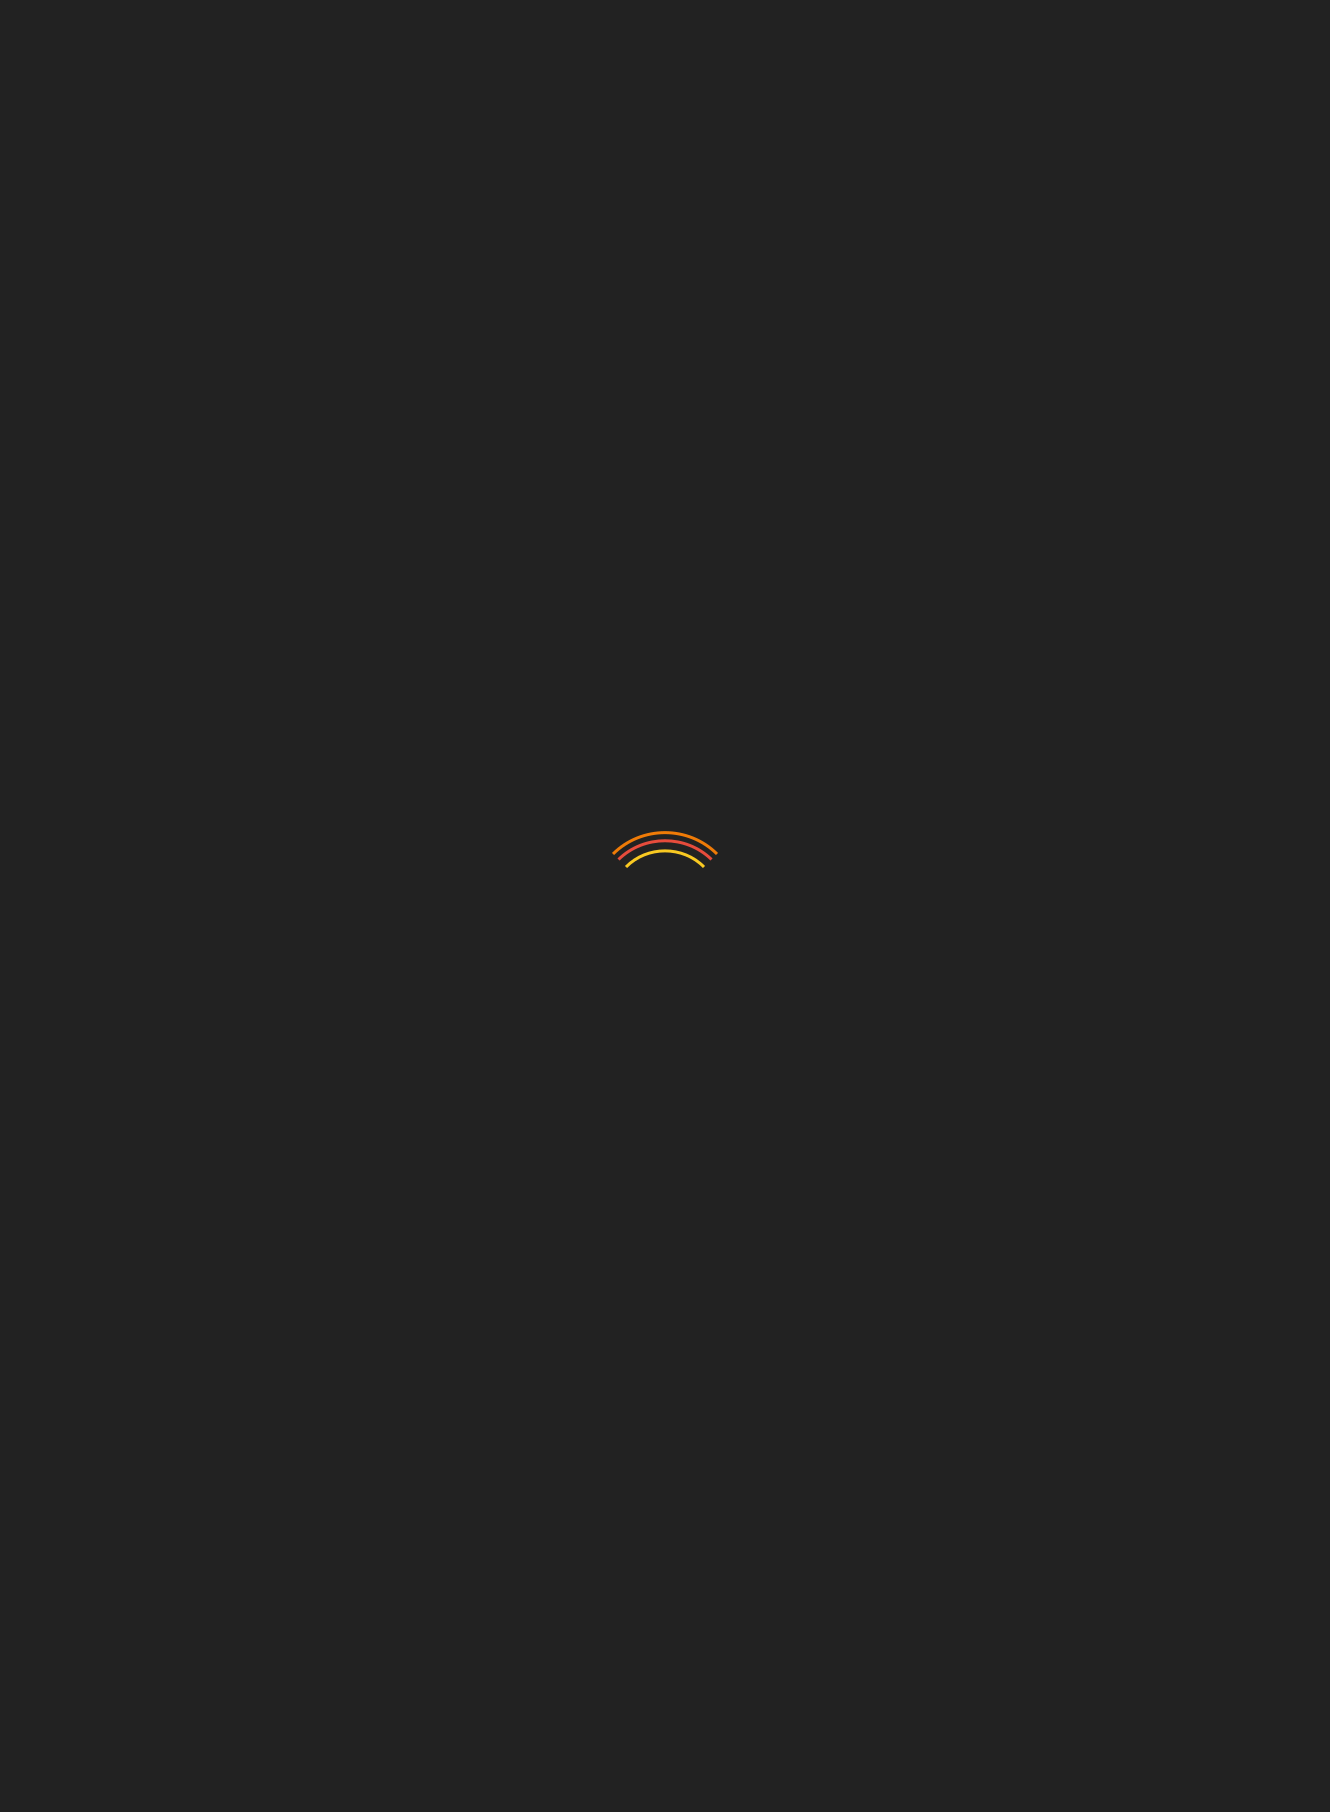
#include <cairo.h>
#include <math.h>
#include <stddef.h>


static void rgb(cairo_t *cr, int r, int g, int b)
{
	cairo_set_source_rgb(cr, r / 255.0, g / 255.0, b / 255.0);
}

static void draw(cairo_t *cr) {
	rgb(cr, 34, 34, 34);
	cairo_paint(cr);
	cairo_new_path(cr);
	cairo_move_to(cr, 613, 854);
	cairo_curve_to(cr, 641.5, 825.5, 688.5, 825.5, 717, 854);
	rgb(cr, 239, 123, 7);
	cairo_set_line_width(cr, 3);
	cairo_stroke(cr);
	cairo_new_path(cr);
	cairo_move_to(cr, 618.5, 859.5);
	cairo_curve_to(cr, 644, 834.5, 686, 834.5, 711.5, 859.5);
	rgb(cr, 231, 76, 60);
	cairo_stroke(cr);
	cairo_new_path(cr);
	cairo_move_to(cr, 626, 867);
	cairo_curve_to(cr, 647, 845.5, 683, 845.5, 704, 867);
	rgb(cr, 249, 201, 34);
	cairo_stroke(cr);
}

int main(void) {
	cairo_surface_t *surface = cairo_image_surface_create(CAIRO_FORMAT_RGB24, 1330, 1812);
	cairo_t *cr = cairo_create(surface);
	cairo_font_options_t *options = cairo_font_options_create();
	cairo_font_options_set_hint_metrics(options, CAIRO_HINT_METRICS_OFF);
	cairo_font_options_set_hint_style(options, CAIRO_HINT_STYLE_NONE);
	cairo_set_font_options(cr, options);
	cairo_set_miter_limit(cr, 4);
	draw(cr);
	cairo_surface_write_to_png(surface, "render.png");
	cairo_font_options_destroy(options);
	cairo_destroy(cr);
	cairo_surface_destroy(surface);
	return 0;
}
